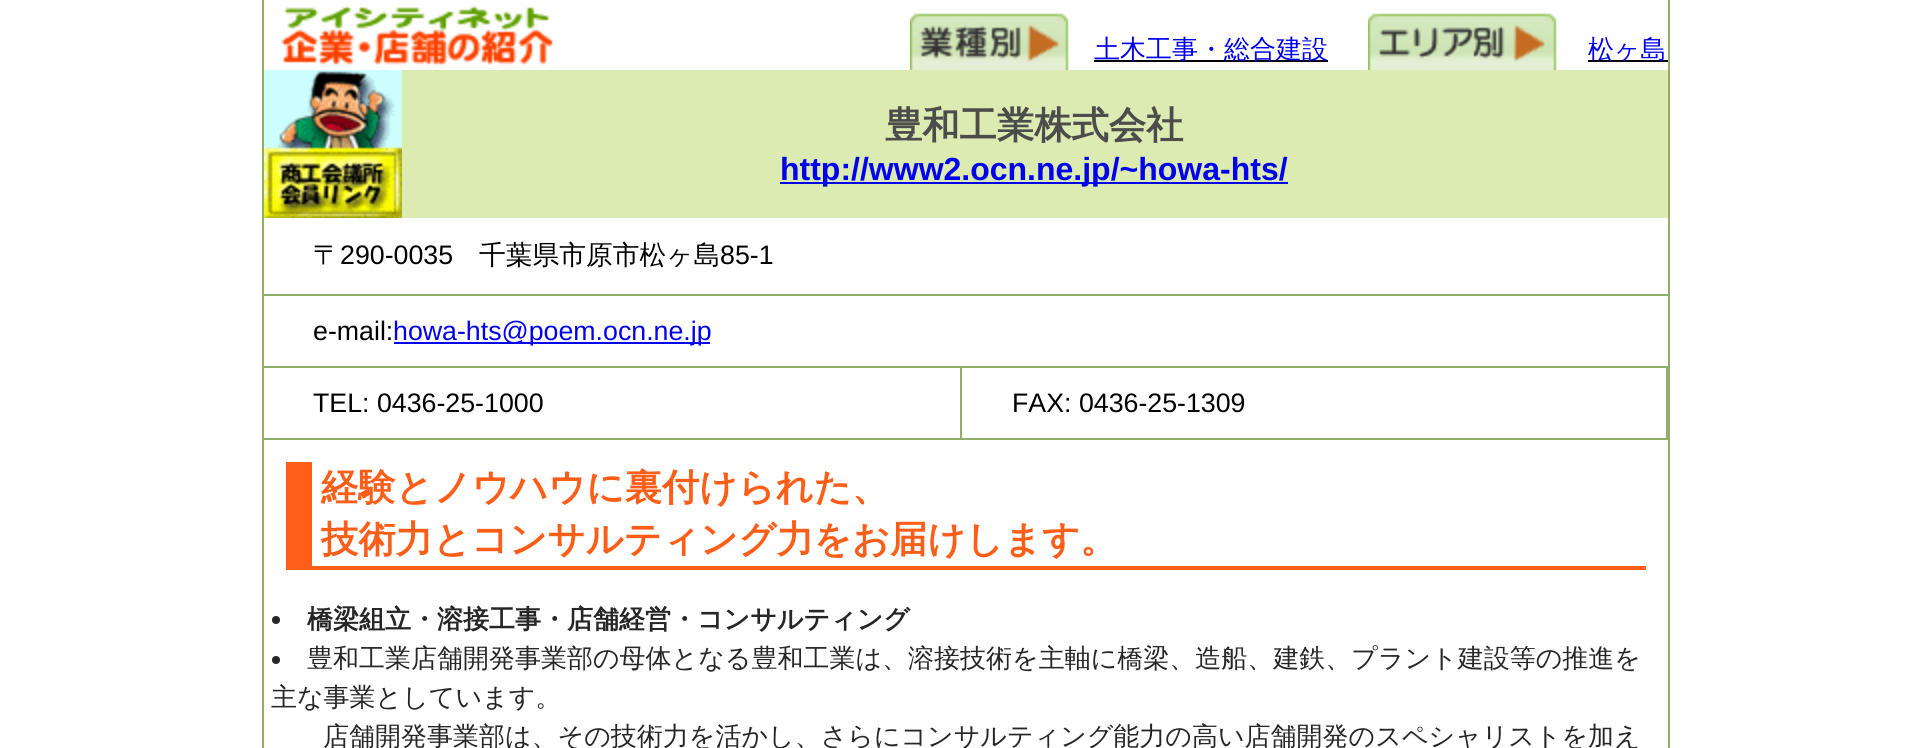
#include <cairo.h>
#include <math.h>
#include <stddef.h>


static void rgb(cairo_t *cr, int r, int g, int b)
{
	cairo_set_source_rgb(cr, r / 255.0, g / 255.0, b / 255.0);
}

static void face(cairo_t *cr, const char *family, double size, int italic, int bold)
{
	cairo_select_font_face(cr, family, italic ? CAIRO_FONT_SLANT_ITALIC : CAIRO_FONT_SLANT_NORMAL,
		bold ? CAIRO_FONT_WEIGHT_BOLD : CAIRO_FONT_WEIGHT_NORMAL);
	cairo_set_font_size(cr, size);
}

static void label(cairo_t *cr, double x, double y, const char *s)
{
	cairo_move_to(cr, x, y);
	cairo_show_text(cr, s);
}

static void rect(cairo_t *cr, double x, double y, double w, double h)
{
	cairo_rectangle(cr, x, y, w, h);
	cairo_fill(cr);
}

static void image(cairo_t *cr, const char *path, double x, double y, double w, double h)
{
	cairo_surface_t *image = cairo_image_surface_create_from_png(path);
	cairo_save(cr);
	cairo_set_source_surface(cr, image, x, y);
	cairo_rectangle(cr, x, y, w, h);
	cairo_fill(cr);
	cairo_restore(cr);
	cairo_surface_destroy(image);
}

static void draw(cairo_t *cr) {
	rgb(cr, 255, 255, 255);
	cairo_paint(cr);
	rgb(cr, 145, 174, 105);
	rect(cr, 1668, 0, 2, 748);
	rect(cr, 262, 0, 2, 748);
	image(cr, "image0.png", 281, 5, 272, 60);
	image(cr, "image1.png", 910, 13, 159, 57);
	rgb(cr, 0, 0, 0);
	rect(cr, 1094, 60, 234, 2);
	face(cr, "WenQuanYi Zen Hei Medium", 26, 0, 0);
	rgb(cr, 0, 0, 238);
	label(cr, 1094, 58, "土木工事・総合建設");
	image(cr, "image2.png", 1368, 13, 189, 57);
	rgb(cr, 0, 0, 0);
	rect(cr, 1588, 60, 80, 2);
	rgb(cr, 0, 0, 238);
	label(cr, 1588, 58, "松ヶ島");
	rgb(cr, 219, 235, 177);
	rect(cr, 402, 70, 1266, 148);
	rgb(cr, 204, 255, 255);
	rect(cr, 264, 70, 138, 1);
	image(cr, "image3.png", 264, 71, 138, 147);
	face(cr, "WenQuanYi Zen Hei", 37.3, 0, 1);
	rgb(cr, 76, 76, 76);
	label(cr, 885, 138, "豊和工業株式会社");
	rgb(cr, 0, 0, 238);
	rect(cr, 780, 182, 508, 2);
	face(cr, "Liberation Sans", 32, 0, 1);
	label(cr, 780, 180, "http://www2.ocn.ne.jp/~howa-hts/");
	rgb(cr, 145, 174, 105);
	rect(cr, 264, 294, 1404, 2);
	face(cr, "WenQuanYi Zen Hei Medium", 26.75, 0, 0);
	rgb(cr, 0, 0, 0);
	label(cr, 313, 264, "〒");
	face(cr, "Liberation Sans", 26.75, 0, 0);
	label(cr, 340, 264, "290-0035");
	face(cr, "WenQuanYi Zen Hei Medium", 26.75, 0, 0);
	label(cr, 479, 264, "千葉県市原市松ヶ島");
	face(cr, "Liberation Sans", 26.75, 0, 0);
	label(cr, 720, 264, "85-1");
	rgb(cr, 145, 174, 105);
	rect(cr, 264, 366, 1404, 2);
	rgb(cr, 0, 0, 0);
	label(cr, 313, 340, "e-mail:");
	rgb(cr, 0, 0, 238);
	rect(cr, 394, 342, 316, 2);
	label(cr, 393, 340, "howa-hts@poem.ocn.ne.jp");
	rgb(cr, 145, 174, 105);
	rect(cr, 960, 368, 2, 72);
	rect(cr, 264, 438, 698, 2);
	rgb(cr, 0, 0, 0);
	label(cr, 313, 412, "TEL: 0436-25-1000");
	rgb(cr, 145, 174, 105);
	rect(cr, 1666, 368, 2, 72);
	rect(cr, 962, 438, 706, 2);
	rgb(cr, 0, 0, 0);
	label(cr, 1012, 412, "FAX: 0436-25-1309");
	rgb(cr, 255, 94, 25);
	rect(cr, 312, 566, 1334, 4);
	rect(cr, 286, 462, 26, 108);
	face(cr, "WenQuanYi Zen Hei", 37.3, 0, 1);
	label(cr, 321, 500, "経験とノウハウに裏付けられた、");
	label(cr, 321, 552, "技術力とコンサルティング力をお届けします。");
	rgb(cr, 38, 38, 38);
	cairo_new_path(cr);
	cairo_arc(cr, 276, 620, 4, 0, 2 * M_PI);
	cairo_fill(cr);
	face(cr, "WenQuanYi Zen Hei", 26, 0, 1);
	label(cr, 307, 628, "橋梁組立・溶接工事・店舗経営・コンサルティング");
	cairo_new_path(cr);
	cairo_arc(cr, 276, 660, 4, 0, 2 * M_PI);
	cairo_fill(cr);
	face(cr, "WenQuanYi Zen Hei Medium", 26, 0, 0);
	label(cr, 307, 667, "豊和工業店舗開発事業部の母体となる豊和工業は、溶接技術を主軸に橋梁、造船、建鉄、プラント建設等の推進を");
	label(cr, 271, 706, "主な事業としています。");
	label(cr, 323, 745, "店舗開発事業部は、その技術力を活かし、さらにコンサルティング能力の高い店舗開発のスペシャリストを加え");
}

int main(void) {
	cairo_surface_t *surface = cairo_image_surface_create(CAIRO_FORMAT_RGB24, 1930, 748);
	cairo_t *cr = cairo_create(surface);
	cairo_font_options_t *options = cairo_font_options_create();
	cairo_font_options_set_hint_metrics(options, CAIRO_HINT_METRICS_OFF);
	cairo_font_options_set_hint_style(options, CAIRO_HINT_STYLE_NONE);
	cairo_set_font_options(cr, options);
	cairo_set_miter_limit(cr, 4);
	draw(cr);
	cairo_surface_write_to_png(surface, "render.png");
	cairo_font_options_destroy(options);
	cairo_destroy(cr);
	cairo_surface_destroy(surface);
	return 0;
}
